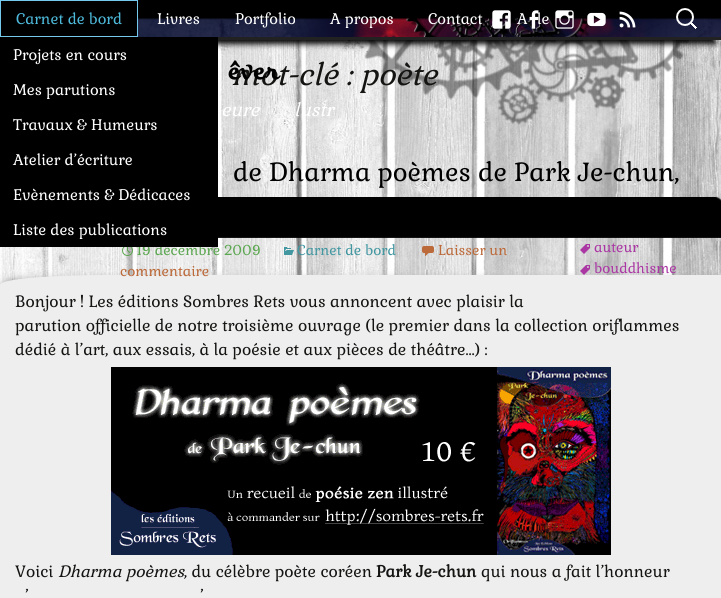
#include <cairo.h>
#include <math.h>
#include <stddef.h>


static void rgb(cairo_t *cr, int r, int g, int b)
{
	cairo_set_source_rgb(cr, r / 255.0, g / 255.0, b / 255.0);
}

static void face(cairo_t *cr, const char *family, double size, int italic, int bold)
{
	cairo_select_font_face(cr, family, italic ? CAIRO_FONT_SLANT_ITALIC : CAIRO_FONT_SLANT_NORMAL,
		bold ? CAIRO_FONT_WEIGHT_BOLD : CAIRO_FONT_WEIGHT_NORMAL);
	cairo_set_font_size(cr, size);
}

static void label(cairo_t *cr, double x, double y, const char *s)
{
	cairo_move_to(cr, x, y);
	cairo_show_text(cr, s);
}

static void tracked(cairo_t *cr, double x, double y, const char *s, double letter, double word)
{
	cairo_move_to(cr, x, y);
	while (*s) {
		char ch[5] = {0};
		int n = 0;
		do ch[n++] = *s++; while ((*s & 0xC0) == 0x80);
		cairo_show_text(cr, ch);
		cairo_rel_move_to(cr, letter + word * (*ch == ' '), 0);
	}
}

static void rect(cairo_t *cr, double x, double y, double w, double h)
{
	cairo_rectangle(cr, x, y, w, h);
	cairo_fill(cr);
}

static void rrect(cairo_t *cr, double x, double y, double w, double h, double r)
{
	cairo_new_sub_path(cr);
	cairo_arc(cr, x + w - r, y + h - r, r, 0, M_PI / 2);
	cairo_arc(cr, x + r, y + h - r, r, M_PI / 2, M_PI);
	cairo_arc(cr, x + r, y + r, r, M_PI, 1.5 * M_PI);
	cairo_arc(cr, x + w - r, y + r, r, 1.5 * M_PI, 2 * M_PI);
	cairo_close_path(cr);
}

static void soft_shadow(cairo_t *cr, double x, double y, double w, double h, double r, double blur, double alpha)
{
	cairo_push_group_with_content(cr, CAIRO_CONTENT_ALPHA);
	cairo_set_operator(cr, CAIRO_OPERATOR_SOURCE);
	for (int i = 15; i >= -15 && fmin(w, h) + blur * i / 3 > 0; i -= 2) {
		double e = blur * i / 6;
		cairo_set_source_rgba(cr, 0, 0, 0, alpha * erfc((i - 1) / 8.5) / 2);
		rrect(cr, x - e, y - e, w + 2 * e, h + 2 * e, fmax(0, fmin(r + e + blur * .6, fmin(w, h) / 2 + e)));
		cairo_fill(cr);
	}
	cairo_pattern_t *soft = cairo_pop_group(cr);
	cairo_mask(cr, soft);
	cairo_pattern_destroy(soft);
}

static void image(cairo_t *cr, const char *path, double x, double y, double w, double h)
{
	cairo_surface_t *image = cairo_image_surface_create_from_png(path);
	cairo_save(cr);
	cairo_set_source_surface(cr, image, x, y);
	cairo_rectangle(cr, x, y, w, h);
	cairo_fill(cr);
	cairo_restore(cr);
	cairo_surface_destroy(image);
}

static void draw(cairo_t *cr) {
	cairo_pattern_t *gradient;
	rgb(cr, 255, 255, 255);
	cairo_paint(cr);
	image(cr, "image0.png", 0, 40, 721, 245);
	image(cr, "image8.png", 364, 40, 326, 85);
	rgb(cr, 0, 0, 0);
	soft_shadow(cr, 6, 16, 709, 28, 0, 3, 1);
	image(cr, "image1.png", 138, 0, 583, 37);
	rgb(cr, 34, 34, 34);
	rect(cr, 218, 37, 503, 3);
	rgb(cr, 0, 0, 0);
	cairo_rectangle(cr, 0.5, 0.5, 137, 36);
	cairo_fill_preserve(cr);
	rgb(cr, 116, 201, 237);
	cairo_set_line_width(cr, 1);
	cairo_stroke(cr);
	face(cr, "Gabriela", 15, 0, 0);
	rgb(cr, 77, 186, 219);
	label(cr, 16, 24, "Carnet de bord");
	face(cr, "Gabriela", 14, 0, 0);
	rgb(cr, 92, 167, 81);
	label(cr, 136, 255, "19 décembre 2009");
	rgb(cr, 0, 0, 0);
	rect(cr, 0, 37, 218, 210);
	face(cr, "Gabriela", 15, 0, 0);
	rgb(cr, 255, 255, 255);
	label(cr, 13, 60, "Projets en cours");
	label(cr, 13, 95, "Mes parutions");
	label(cr, 13, 130, "Travaux & Humeurs");
	label(cr, 13, 165, "Atelier d’écriture");
	label(cr, 13, 200, "Evènements & Dédicaces");
	label(cr, 13, 235, "Liste des publications");
	label(cr, 235, 24, "Portfolio");
	label(cr, 517, 24, "A");
	label(cr, 537, 24, "le");
	label(cr, 157, 24, "Livres");
	label(cr, 330, 24, "A propos");
	label(cr, 428, 24, "Contact");
	image(cr, "image2.png", 492, 10, 19, 19);
	image(cr, "image3.png", 529, 10, 10, 19);
	image(cr, "image4.png", 555, 10, 19, 19);
	image(cr, "image5.png", 587, 12, 19, 15);
	image(cr, "image6.png", 619, 11, 17, 17);
	image(cr, "image7.png", 676, 8, 21, 21);
	face(cr, "Gabriela", 30, 1, 0);
	rgb(cr, 20, 20, 18);
	label(cr, 231, 85, "mot-clé : poète");
	face(cr, "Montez", 36, 0, 1);
	rgb(cr, 0, 0, 0);
	tracked(cr, 228, 79, "êver", 1.5, 0);
	face(cr, "Gabriela", 18, 1, 0);
	rgb(cr, 255, 255, 255);
	label(cr, 221, 116, "eure");
	label(cr, 294, 116, "lustr");
	image(cr, "image9.png", 218, 197, 503, 41);
	face(cr, "Gabriela", 25.6, 0, 0);
	rgb(cr, 0, 0, 0);
	label(cr, 233, 181, "de Dharma poèmes de Park Je-chun,");
	image(cr, "image10.png", 422, 246, 12, 11);
	face(cr, "Gabriela", 14, 0, 0);
	rgb(cr, 188, 106, 58);
	label(cr, 438, 255, "Laisser un");
	rgb(cr, 101, 101, 101);
	soft_shadow(cr, 1, 282, 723, 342, 11, 5, 1);
	gradient = cairo_pattern_create_radial(0, 0, 0, 0, 0, 1);
	cairo_pattern_set_matrix(gradient, &(cairo_matrix_t){1.0 / 144, 0, 0, 1.0 / 38, -1.0 * 361 / 144, -1.0 * 656 / 38});
	cairo_pattern_add_color_stop_rgba(gradient, 0, 1, 1, 1, 1);
	cairo_pattern_add_color_stop_rgba(gradient, 1, 0.933, 0.933, 0.933, 1);
	cairo_set_source(cr, gradient);
	cairo_pattern_destroy(gradient);
	cairo_new_path(cr);
	cairo_move_to(cr, 108, 275);
	cairo_line_to(cr, 721, 275);
	cairo_line_to(cr, 721, 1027);
	cairo_curve_to(cr, 721, 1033, 673, 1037, 613, 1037);
	cairo_line_to(cr, 108, 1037);
	cairo_curve_to(cr, 48, 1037, 0, 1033, 0, 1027);
	cairo_line_to(cr, 0, 285);
	cairo_curve_to(cr, 0, 279, 48, 275, 108, 275);
	cairo_close_path(cr);
	cairo_fill(cr);
	rgb(cr, 188, 106, 58);
	label(cr, 120, 276, "commentaire");
	image(cr, "image11.png", 580, 244, 10, 10);
	rgb(cr, 170, 55, 164);
	label(cr, 594, 252, "auteur");
	image(cr, "image12.png", 580, 265, 10, 10);
	label(cr, 594, 273, "bouddhisme");
	image(cr, "image13.png", 122, 247, 11, 9);
	image(cr, "image14.png", 284, 247, 10, 8);
	rgb(cr, 66, 151, 161);
	label(cr, 297, 255, "Carnet de bord");
	face(cr, "Gabriela", 16, 0, 0);
	rgb(cr, 20, 20, 18);
	label(cr, 15, 307, "Bonjour ! Les éditions Sombres Rets vous annoncent avec plaisir la");
	label(cr, 15, 331, "parution officielle de notre troisième ouvrage (le premier dans la collection oriflammes");
	label(cr, 15, 355, "dédié à l’art, aux essais, à la poésie et aux pièces de théâtre…) :");
	image(cr, "image15.png", 111, 367, 500, 188);
	label(cr, 15, 577, "Voici");
	face(cr, "Gabriela", 16, 1, 0);
	label(cr, 58, 577, "Dharma poèmes");
	face(cr, "Gabriela", 16, 0, 0);
	label(cr, 184, 577, ", du célèbre poète coréen");
	face(cr, "Gabriela", 16, 0, 1);
	label(cr, 376, 577, "Park Je-chun");
	face(cr, "Gabriela", 16, 0, 0);
	label(cr, 481, 577, "qui nous a fait l’honneur");
	label(cr, 25, 601, "’");
	label(cr, 200, 601, "’");
}

int main(void) {
	cairo_surface_t *surface = cairo_image_surface_create(CAIRO_FORMAT_RGB24, 721, 598);
	cairo_t *cr = cairo_create(surface);
	cairo_font_options_t *options = cairo_font_options_create();
	cairo_font_options_set_hint_metrics(options, CAIRO_HINT_METRICS_OFF);
	cairo_font_options_set_hint_style(options, CAIRO_HINT_STYLE_NONE);
	cairo_set_font_options(cr, options);
	cairo_set_miter_limit(cr, 4);
	draw(cr);
	cairo_surface_write_to_png(surface, "render.png");
	cairo_font_options_destroy(options);
	cairo_destroy(cr);
	cairo_surface_destroy(surface);
	return 0;
}
